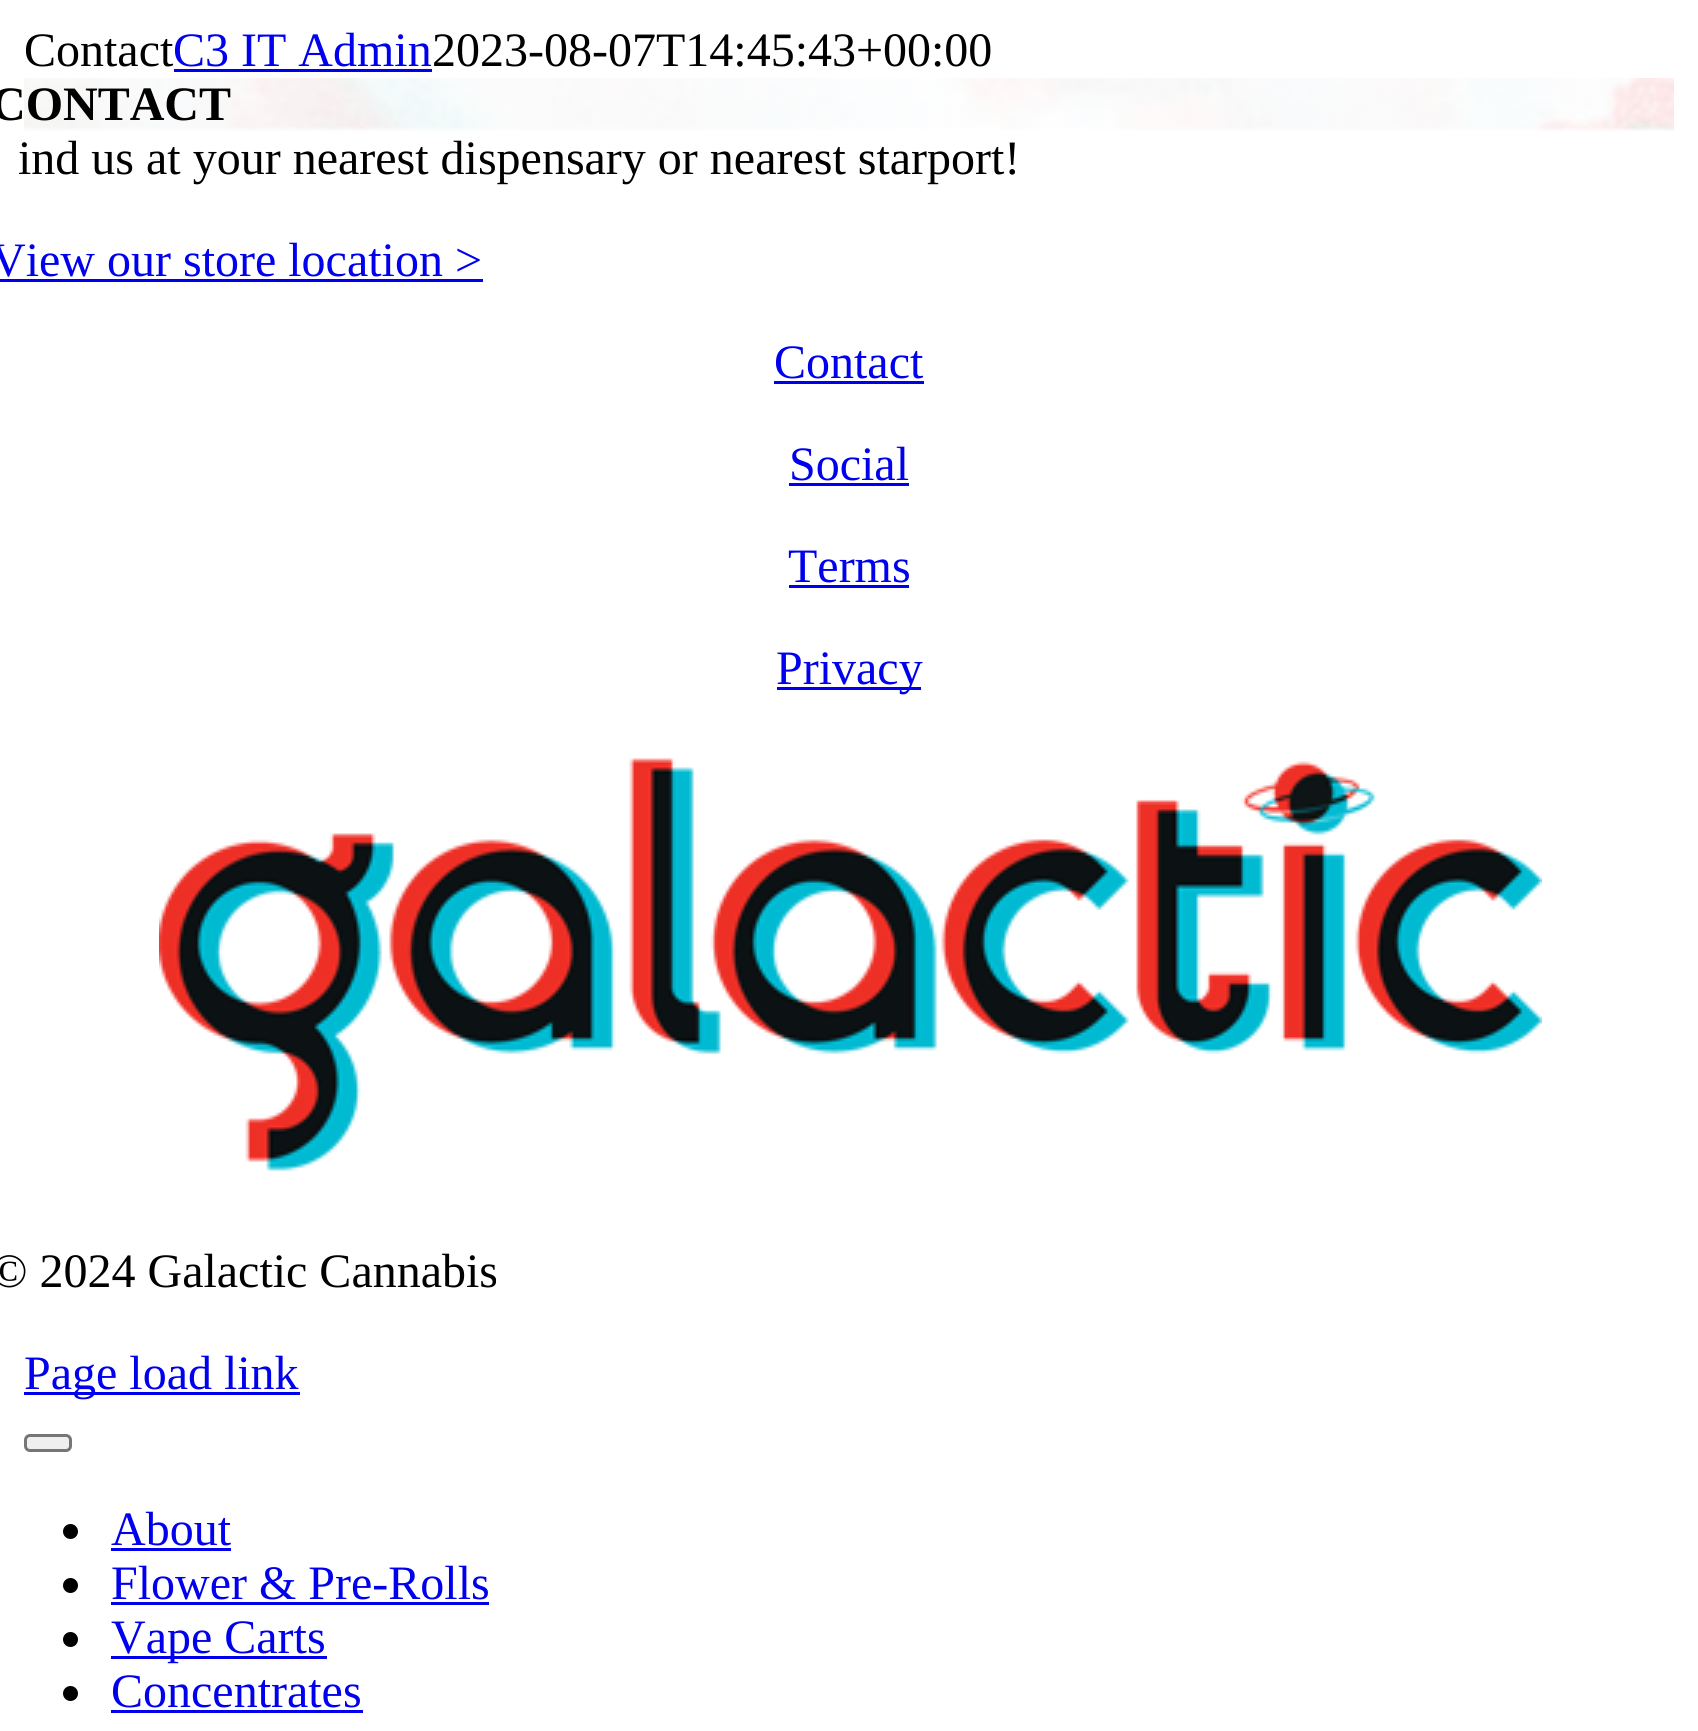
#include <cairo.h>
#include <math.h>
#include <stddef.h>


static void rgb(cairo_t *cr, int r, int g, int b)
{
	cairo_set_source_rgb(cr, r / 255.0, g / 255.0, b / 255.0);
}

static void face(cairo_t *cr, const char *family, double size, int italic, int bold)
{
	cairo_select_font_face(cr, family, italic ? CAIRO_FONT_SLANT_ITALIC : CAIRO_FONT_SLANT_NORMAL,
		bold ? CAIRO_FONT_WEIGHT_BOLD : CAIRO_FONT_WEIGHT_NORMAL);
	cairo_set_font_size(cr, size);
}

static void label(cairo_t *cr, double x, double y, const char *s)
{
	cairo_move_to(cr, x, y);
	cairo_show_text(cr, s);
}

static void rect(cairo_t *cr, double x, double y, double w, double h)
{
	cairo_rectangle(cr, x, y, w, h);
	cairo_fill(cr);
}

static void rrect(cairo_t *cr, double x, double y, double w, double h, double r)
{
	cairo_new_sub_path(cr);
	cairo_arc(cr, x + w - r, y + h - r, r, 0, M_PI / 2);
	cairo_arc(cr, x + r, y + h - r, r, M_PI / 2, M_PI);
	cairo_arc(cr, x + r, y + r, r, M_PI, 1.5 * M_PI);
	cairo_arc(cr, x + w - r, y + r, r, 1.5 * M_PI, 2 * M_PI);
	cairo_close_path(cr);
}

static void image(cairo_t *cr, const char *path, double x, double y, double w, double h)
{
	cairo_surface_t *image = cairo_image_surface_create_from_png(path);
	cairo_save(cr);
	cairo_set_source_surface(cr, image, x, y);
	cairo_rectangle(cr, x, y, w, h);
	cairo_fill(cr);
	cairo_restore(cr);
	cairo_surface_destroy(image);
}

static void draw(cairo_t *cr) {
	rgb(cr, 255, 255, 255);
	cairo_paint(cr);
	face(cr, "Liberation Serif", 48, 0, 0);
	rgb(cr, 0, 0, 0);
	label(cr, 24, 66, "Contact");
	rgb(cr, 0, 0, 238);
	label(cr, 173, 66, "C3 IT Admin");
	rect(cr, 174, 69, 258, 3);
	rgb(cr, 0, 0, 0);
	label(cr, 432, 66, "2023-08-07T14:45:43+00:00");
	image(cr, "image0.png", 24, 78, 1650, 53);
	face(cr, "Liberation Serif", 48, 0, 1);
	label(cr, -9, 120, "CONTACT");
	face(cr, "Liberation Serif", 48, 0, 0);
	label(cr, 18, 174, "ind us at your nearest dispensary or nearest starport!");
	rgb(cr, 0, 0, 238);
	label(cr, -9, 276, "View our store location >");
	rect(cr, 0, 279, 483, 3);
	label(cr, 774, 378, "Contact");
	rect(cr, 774, 381, 150, 3);
	label(cr, 789, 480, "Social");
	rect(cr, 789, 483, 120, 3);
	label(cr, 788, 582, "Terms");
	rect(cr, 789, 585, 120, 3);
	rect(cr, 777, 687, 144, 3);
	label(cr, 776, 684, "Privacy");
	image(cr, "image1.png", 159, 758, 1383, 413);
	rgb(cr, 0, 0, 0);
	label(cr, -9, 1287, "© 2024 Galactic Cannabis");
	rgb(cr, 0, 0, 238);
	rect(cr, 24, 1392, 276, 3);
	label(cr, 24, 1389, "Page load link");
	rgb(cr, 239, 239, 239);
	rrect(cr, 25.5, 1435.5, 45, 15, 4.5);
	cairo_fill_preserve(cr);
	rgb(cr, 118, 118, 118);
	cairo_set_line_width(cr, 3);
	cairo_stroke(cr);
	rgb(cr, 0, 0, 0);
	cairo_arc(cr, 70.5, 1531.5, 7.5, 0, 2 * M_PI);
	cairo_fill(cr);
	rgb(cr, 0, 0, 238);
	label(cr, 111, 1545, "About");
	rect(cr, 111, 1548, 120, 3);
	rgb(cr, 0, 0, 0);
	cairo_new_path(cr);
	cairo_arc(cr, 70.5, 1585.5, 7.5, 0, 2 * M_PI);
	cairo_fill(cr);
	rgb(cr, 0, 0, 238);
	label(cr, 111, 1599, "Flower & Pre-Rolls");
	rect(cr, 111, 1602, 378, 3);
	rgb(cr, 0, 0, 0);
	cairo_new_path(cr);
	cairo_arc(cr, 70.5, 1639.5, 7.5, 0, 2 * M_PI);
	cairo_fill(cr);
	rgb(cr, 0, 0, 238);
	rect(cr, 111, 1656, 216, 3);
	label(cr, 111, 1653, "Vape Carts");
	rgb(cr, 0, 0, 0);
	cairo_new_path(cr);
	cairo_arc(cr, 70.5, 1693.5, 7.5, 0, 2 * M_PI);
	cairo_fill(cr);
	rgb(cr, 0, 0, 238);
	label(cr, 111, 1707, "Concentrates");
	rect(cr, 111, 1710, 252, 3);
}

int main(void) {
	cairo_surface_t *surface = cairo_image_surface_create(CAIRO_FORMAT_RGB24, 1698, 1731);
	cairo_t *cr = cairo_create(surface);
	cairo_font_options_t *options = cairo_font_options_create();
	cairo_font_options_set_hint_metrics(options, CAIRO_HINT_METRICS_OFF);
	cairo_font_options_set_hint_style(options, CAIRO_HINT_STYLE_NONE);
	cairo_set_font_options(cr, options);
	cairo_set_miter_limit(cr, 4);
	draw(cr);
	cairo_surface_write_to_png(surface, "render.png");
	cairo_font_options_destroy(options);
	cairo_destroy(cr);
	cairo_surface_destroy(surface);
	return 0;
}
